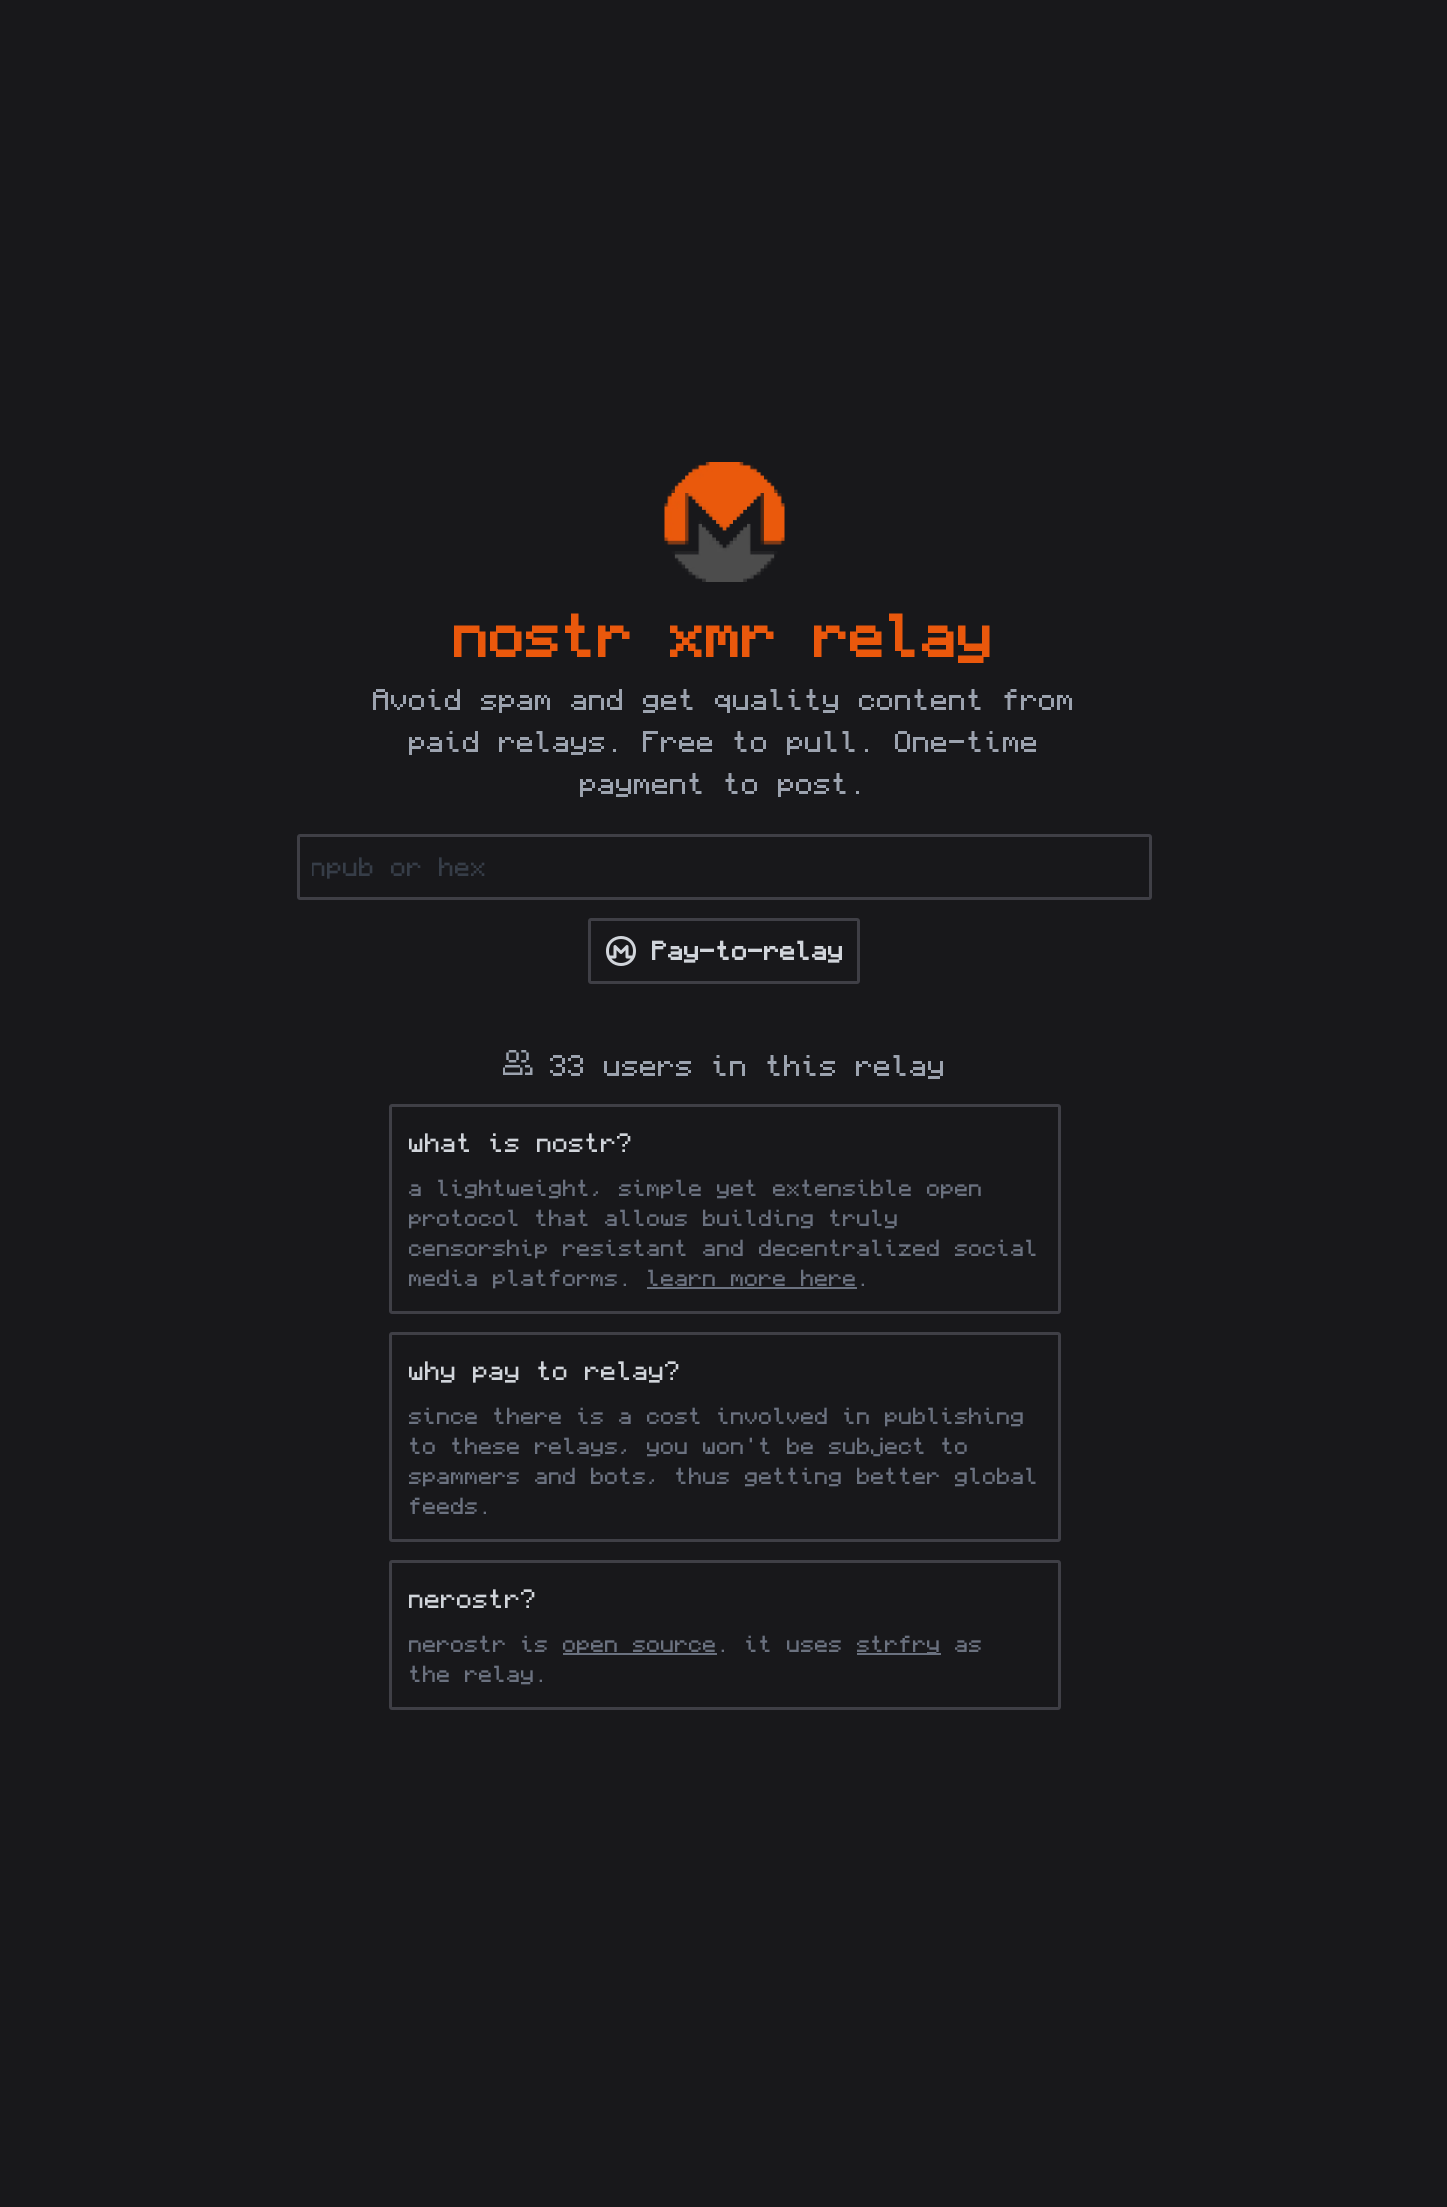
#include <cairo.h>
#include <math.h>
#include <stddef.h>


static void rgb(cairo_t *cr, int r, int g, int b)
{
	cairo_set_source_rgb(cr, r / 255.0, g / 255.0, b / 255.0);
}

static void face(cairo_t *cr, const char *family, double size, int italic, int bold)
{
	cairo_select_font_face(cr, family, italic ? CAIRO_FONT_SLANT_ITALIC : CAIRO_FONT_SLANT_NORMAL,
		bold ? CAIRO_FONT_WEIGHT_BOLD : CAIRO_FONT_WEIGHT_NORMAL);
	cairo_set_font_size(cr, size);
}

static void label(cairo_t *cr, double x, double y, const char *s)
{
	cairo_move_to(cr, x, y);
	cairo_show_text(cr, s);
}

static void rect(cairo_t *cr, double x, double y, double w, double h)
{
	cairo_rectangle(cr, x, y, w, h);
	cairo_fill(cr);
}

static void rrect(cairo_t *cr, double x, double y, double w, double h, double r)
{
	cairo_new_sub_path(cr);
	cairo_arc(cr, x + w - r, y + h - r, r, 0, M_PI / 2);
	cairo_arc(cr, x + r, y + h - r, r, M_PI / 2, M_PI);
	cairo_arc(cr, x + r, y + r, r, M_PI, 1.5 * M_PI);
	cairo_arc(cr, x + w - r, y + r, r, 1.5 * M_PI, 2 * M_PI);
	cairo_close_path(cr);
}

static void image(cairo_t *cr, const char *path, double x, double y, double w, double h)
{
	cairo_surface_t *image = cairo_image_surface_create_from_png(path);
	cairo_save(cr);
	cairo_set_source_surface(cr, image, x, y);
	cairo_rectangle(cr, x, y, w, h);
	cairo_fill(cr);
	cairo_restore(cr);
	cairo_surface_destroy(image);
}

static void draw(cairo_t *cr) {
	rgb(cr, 24, 24, 27);
	cairo_paint(cr);
	image(cr, "image0.png", 664, 462, 121, 120);
	face(cr, "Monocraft", 54, 0, 1);
	rgb(cr, 234, 88, 12);
	label(cr, 454, 657, "nostr xmr relay");
	face(cr, "Monocraft", 27, 0, 0);
	rgb(cr, 156, 163, 175);
	label(cr, 373, 710, "Avoid spam and get quality content from");
	label(cr, 409, 752, "paid relays. Free to pull. One-time");
	label(cr, 580, 794, "payment to post.");
	rrect(cr, 298.5, 835.5, 852, 63, 1.5);
	rgb(cr, 63, 63, 70);
	cairo_set_line_width(cr, 3);
	cairo_stroke(cr);
	cairo_save(cr);
	cairo_rectangle(cr, 312, 855, 825, 26);
	cairo_clip(cr);
	face(cr, "Monocraft", 24, 0, 0);
	rgb(cr, 54, 61, 72);
	label(cr, 311, 876, "npub or hex");
	cairo_restore(cr);
	rrect(cr, 589.5, 919.5, 269, 63, 1.5);
	cairo_stroke(cr);
	cairo_new_path(cr);
	cairo_move_to(cr, 607.5, 951);
	cairo_curve_to(cr, 607.5, 969, 634.5, 969, 634.5, 951);
	cairo_curve_to(cr, 634.5, 933, 607.5, 933, 607.5, 951);
	cairo_move_to(cr, 609, 957);
	cairo_line_to(cr, 615, 957);
	cairo_line_to(cr, 615, 946.5);
	cairo_line_to(cr, 621, 952.5);
	cairo_line_to(cr, 627, 946.5);
	cairo_line_to(cr, 627, 957);
	cairo_line_to(cr, 633, 957);
	rgb(cr, 209, 213, 219);
	cairo_set_line_cap(cr, CAIRO_LINE_CAP_ROUND);
	cairo_set_line_join(cr, CAIRO_LINE_JOIN_ROUND);
	cairo_stroke(cr);
	face(cr, "Monocraft", 24, 0, 1);
	label(cr, 652, 960, "Pay-to-relay");
	image(cr, "image1.png", 503, 1050, 30, 25);
	face(cr, "Monocraft", 27, 0, 0);
	rgb(cr, 156, 163, 175);
	label(cr, 550, 1076, "33 users in this relay");
	rrect(cr, 390.5, 1105.5, 669, 207, 1.5);
	rgb(cr, 63, 63, 70);
	cairo_set_line_cap(cr, CAIRO_LINE_CAP_BUTT);
	cairo_set_line_join(cr, CAIRO_LINE_JOIN_MITER);
	cairo_stroke(cr);
	face(cr, "Monocraft", 24, 0, 0);
	rgb(cr, 209, 213, 219);
	label(cr, 409, 1152, "what is nostr?");
	face(cr, "Monocraft", 21, 0, 0);
	rgb(cr, 107, 114, 128);
	label(cr, 409, 1196, "a lightweight, simple yet extensible open");
	label(cr, 409, 1226, "protocol that allows building truly");
	label(cr, 409, 1256, "censorship resistant and decentralized social");
	label(cr, 409, 1286, "media platforms. learn more here.");
	rect(cr, 647, 1287, 210, 2);
	rrect(cr, 390.5, 1333.5, 669, 207, 1.5);
	rgb(cr, 63, 63, 70);
	cairo_stroke(cr);
	face(cr, "Monocraft", 24, 0, 0);
	rgb(cr, 209, 213, 219);
	label(cr, 409, 1380, "why pay to relay?");
	face(cr, "Monocraft", 21, 0, 0);
	rgb(cr, 107, 114, 128);
	label(cr, 409, 1424, "since there is a cost involved in publishing");
	label(cr, 409, 1454, "to these relays, you won't be subject to");
	label(cr, 409, 1484, "spammers and bots, thus getting better global");
	label(cr, 409, 1514, "feeds.");
	rrect(cr, 390.5, 1561.5, 669, 147, 1.5);
	rgb(cr, 63, 63, 70);
	cairo_stroke(cr);
	face(cr, "Monocraft", 24, 0, 0);
	rgb(cr, 209, 213, 219);
	label(cr, 409, 1608, "nerostr?");
	face(cr, "Monocraft", 21, 0, 0);
	rgb(cr, 107, 114, 128);
	label(cr, 409, 1652, "nerostr is");
	rect(cr, 563, 1653, 154, 2);
	label(cr, 563, 1652, "open source. it uses");
	rect(cr, 857, 1653, 84, 2);
	label(cr, 857, 1652, "strfry as");
	label(cr, 409, 1682, "the relay.");
}

int main(void) {
	cairo_surface_t *surface = cairo_image_surface_create(CAIRO_FORMAT_RGB24, 1447, 2207);
	cairo_t *cr = cairo_create(surface);
	cairo_font_options_t *options = cairo_font_options_create();
	cairo_font_options_set_hint_metrics(options, CAIRO_HINT_METRICS_OFF);
	cairo_font_options_set_hint_style(options, CAIRO_HINT_STYLE_NONE);
	cairo_set_font_options(cr, options);
	cairo_set_miter_limit(cr, 4);
	draw(cr);
	cairo_surface_write_to_png(surface, "render.png");
	cairo_font_options_destroy(options);
	cairo_destroy(cr);
	cairo_surface_destroy(surface);
	return 0;
}
